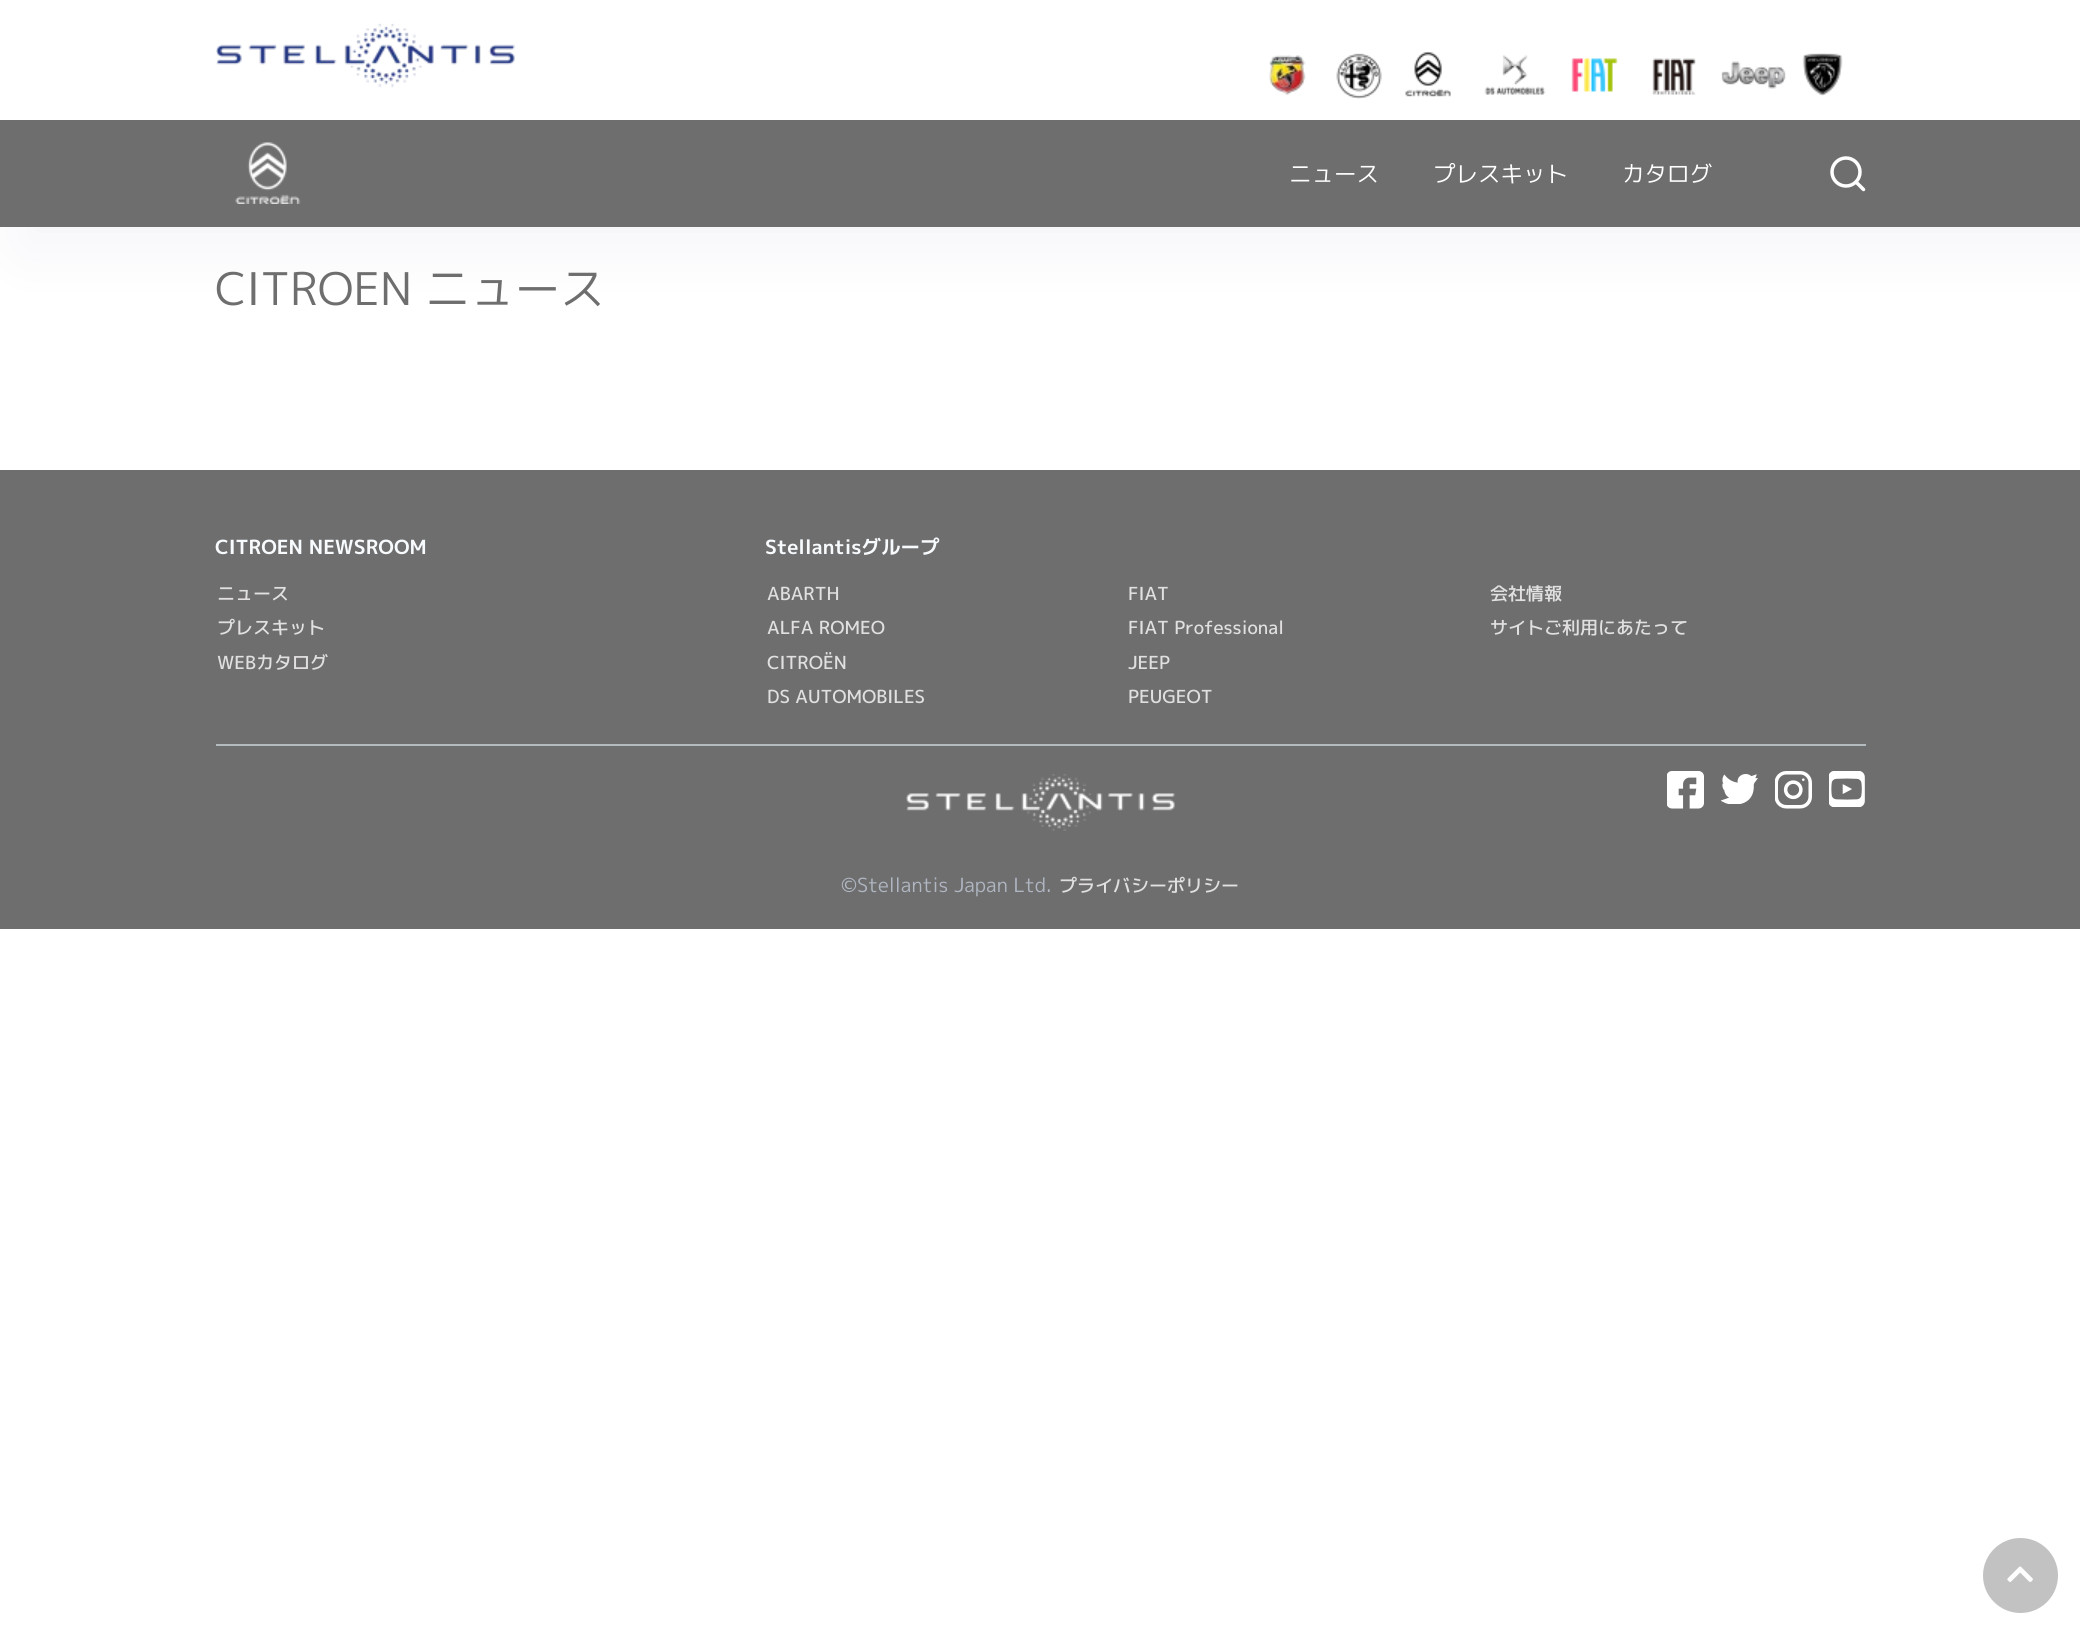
#include <cairo.h>
#include <math.h>
#include <stddef.h>


static void rgb(cairo_t *cr, int r, int g, int b)
{
	cairo_set_source_rgb(cr, r / 255.0, g / 255.0, b / 255.0);
}

static void face(cairo_t *cr, const char *family, double size, int italic, int bold)
{
	cairo_select_font_face(cr, family, italic ? CAIRO_FONT_SLANT_ITALIC : CAIRO_FONT_SLANT_NORMAL,
		bold ? CAIRO_FONT_WEIGHT_BOLD : CAIRO_FONT_WEIGHT_NORMAL);
	cairo_set_font_size(cr, size);
}

static void label(cairo_t *cr, double x, double y, const char *s)
{
	cairo_move_to(cr, x, y);
	cairo_show_text(cr, s);
}

static void rect(cairo_t *cr, double x, double y, double w, double h)
{
	cairo_rectangle(cr, x, y, w, h);
	cairo_fill(cr);
}

static void rrect(cairo_t *cr, double x, double y, double w, double h, double r)
{
	cairo_new_sub_path(cr);
	cairo_arc(cr, x + w - r, y + h - r, r, 0, M_PI / 2);
	cairo_arc(cr, x + r, y + h - r, r, M_PI / 2, M_PI);
	cairo_arc(cr, x + r, y + r, r, M_PI, 1.5 * M_PI);
	cairo_arc(cr, x + w - r, y + r, r, 1.5 * M_PI, 2 * M_PI);
	cairo_close_path(cr);
}

static void soft_shadow(cairo_t *cr, double x, double y, double w, double h, double r, double blur, double alpha)
{
	cairo_push_group_with_content(cr, CAIRO_CONTENT_ALPHA);
	cairo_set_operator(cr, CAIRO_OPERATOR_SOURCE);
	for (int i = 15; i >= -15 && fmin(w, h) + blur * i / 3 > 0; i -= 2) {
		double e = blur * i / 6;
		cairo_set_source_rgba(cr, 0, 0, 0, alpha * erfc((i - 1) / 8.5) / 2);
		rrect(cr, x - e, y - e, w + 2 * e, h + 2 * e, fmax(0, fmin(r + e + blur * .6, fmin(w, h) / 2 + e)));
		cairo_fill(cr);
	}
	cairo_pattern_t *soft = cairo_pop_group(cr);
	cairo_mask(cr, soft);
	cairo_pattern_destroy(soft);
}

static void image(cairo_t *cr, const char *path, double x, double y, double w, double h)
{
	cairo_surface_t *image = cairo_image_surface_create_from_png(path);
	cairo_save(cr);
	cairo_set_source_surface(cr, image, x, y);
	cairo_rectangle(cr, x, y, w, h);
	cairo_fill(cr);
	cairo_restore(cr);
	cairo_surface_destroy(image);
}

static void draw(cairo_t *cr) {
	rgb(cr, 255, 255, 255);
	cairo_paint(cr);
	rgb(cr, 118, 126, 173);
	soft_shadow(cr, 21, 21, 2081, 227, 0, 30, 0.08);
	rgb(cr, 255, 255, 255);
	rect(cr, 0, 0, 2080, 120);
	image(cr, "image0.png", 216, 23, 299, 65);
	image(cr, "image1.png", 1269, 55, 37, 40);
	image(cr, "image2.png", 1336, 53, 46, 46);
	image(cr, "image3.png", 1405, 52, 46, 45);
	image(cr, "image4.png", 1484, 55, 62, 40);
	image(cr, "image5.png", 1571, 58, 47, 34);
	image(cr, "image6.png", 1652, 58, 44, 37);
	image(cr, "image7.png", 1721, 61, 65, 28);
	image(cr, "image8.png", 1802, 53, 41, 43);
	rgb(cr, 110, 110, 110);
	rect(cr, 0, 120, 2080, 107);
	image(cr, "image9.png", 235, 142, 66, 62);
	face(cr, "M PLUS 1p", 22.5, 0, 0);
	rgb(cr, 255, 255, 255);
	label(cr, 1289, 182, "ニュース");
	label(cr, 1433, 182, "プレスキット");
	label(cr, 1622, 182, "カタログ");
	cairo_new_path(cr);
	cairo_arc(cr, 1846, 172, 14, 0, 2 * M_PI);
	cairo_set_line_width(cr, 3.5);
	cairo_stroke(cr);
	cairo_new_path(cr);
	cairo_move_to(cr, 1863.5, 189.5);
	cairo_line_to(cr, 1856, 182);
	cairo_set_line_cap(cr, CAIRO_LINE_CAP_ROUND);
	cairo_set_line_join(cr, CAIRO_LINE_JOIN_ROUND);
	cairo_stroke(cr);
	face(cr, "M PLUS 1p", 45, 0, 0);
	rgb(cr, 110, 110, 110);
	label(cr, 215, 305, "CITROEN ニュース");
	rect(cr, 0, 470, 2080, 459);
	face(cr, "M PLUS 1p", 19.5, 0, 1);
	rgb(cr, 248, 251, 254);
	label(cr, 215, 554, "CITROEN NEWSROOM");
	face(cr, "M PLUS 1p Medium", 18, 0, 0);
	rgb(cr, 225, 223, 224);
	label(cr, 217, 600, "ニュース");
	label(cr, 217, 634, "プレスキット");
	label(cr, 217, 669, "WEBカタログ");
	face(cr, "M PLUS 1p", 19.5, 0, 1);
	rgb(cr, 248, 251, 254);
	label(cr, 765, 554, "Stellantisグループ");
	face(cr, "M PLUS 1p Medium", 18, 0, 0);
	rgb(cr, 225, 223, 224);
	label(cr, 767, 600, "ABARTH");
	label(cr, 767, 634, "ALFA ROMEO");
	label(cr, 767, 669, "CITROËN");
	label(cr, 767, 703, "DS AUTOMOBILES");
	label(cr, 1128, 600, "FIAT");
	label(cr, 1128, 634, "FIAT Professional");
	label(cr, 1128, 669, "JEEP");
	label(cr, 1128, 703, "PEUGEOT");
	label(cr, 1490, 600, "会社情報");
	label(cr, 1490, 634, "サイトご利用にあたって");
	rgb(cr, 180, 187, 191);
	rect(cr, 216, 744, 1650, 2);
	image(cr, "image10.png", 906, 774, 269, 57);
	image(cr, "image11.png", 1667, 771, 37, 38);
	image(cr, "image12.png", 1721, 774, 37, 30);
	image(cr, "image13.png", 1775, 771, 37, 38);
	image(cr, "image14.png", 1829, 771, 36, 36);
	face(cr, "M PLUS 1p", 19.5, 0, 0);
	rgb(cr, 176, 183, 195);
	label(cr, 841, 892, "©Stellantis Japan Ltd.");
	face(cr, "M PLUS 1p Medium", 18, 0, 0);
	rgb(cr, 225, 223, 224);
	label(cr, 1059, 892, "プライバシーポリシー");
	rgb(cr, 194, 194, 194);
	cairo_new_path(cr);
	cairo_arc(cr, 2020.5, 1575.5, 37.5, 0, 2 * M_PI);
	cairo_fill(cr);
	image(cr, "image15.png", 2007, 1566, 26, 16);
}

int main(void) {
	cairo_surface_t *surface = cairo_image_surface_create(CAIRO_FORMAT_RGB24, 2080, 1649);
	cairo_t *cr = cairo_create(surface);
	cairo_font_options_t *options = cairo_font_options_create();
	cairo_font_options_set_hint_metrics(options, CAIRO_HINT_METRICS_OFF);
	cairo_font_options_set_hint_style(options, CAIRO_HINT_STYLE_NONE);
	cairo_set_font_options(cr, options);
	cairo_set_miter_limit(cr, 4);
	draw(cr);
	cairo_surface_write_to_png(surface, "render.png");
	cairo_font_options_destroy(options);
	cairo_destroy(cr);
	cairo_surface_destroy(surface);
	return 0;
}
